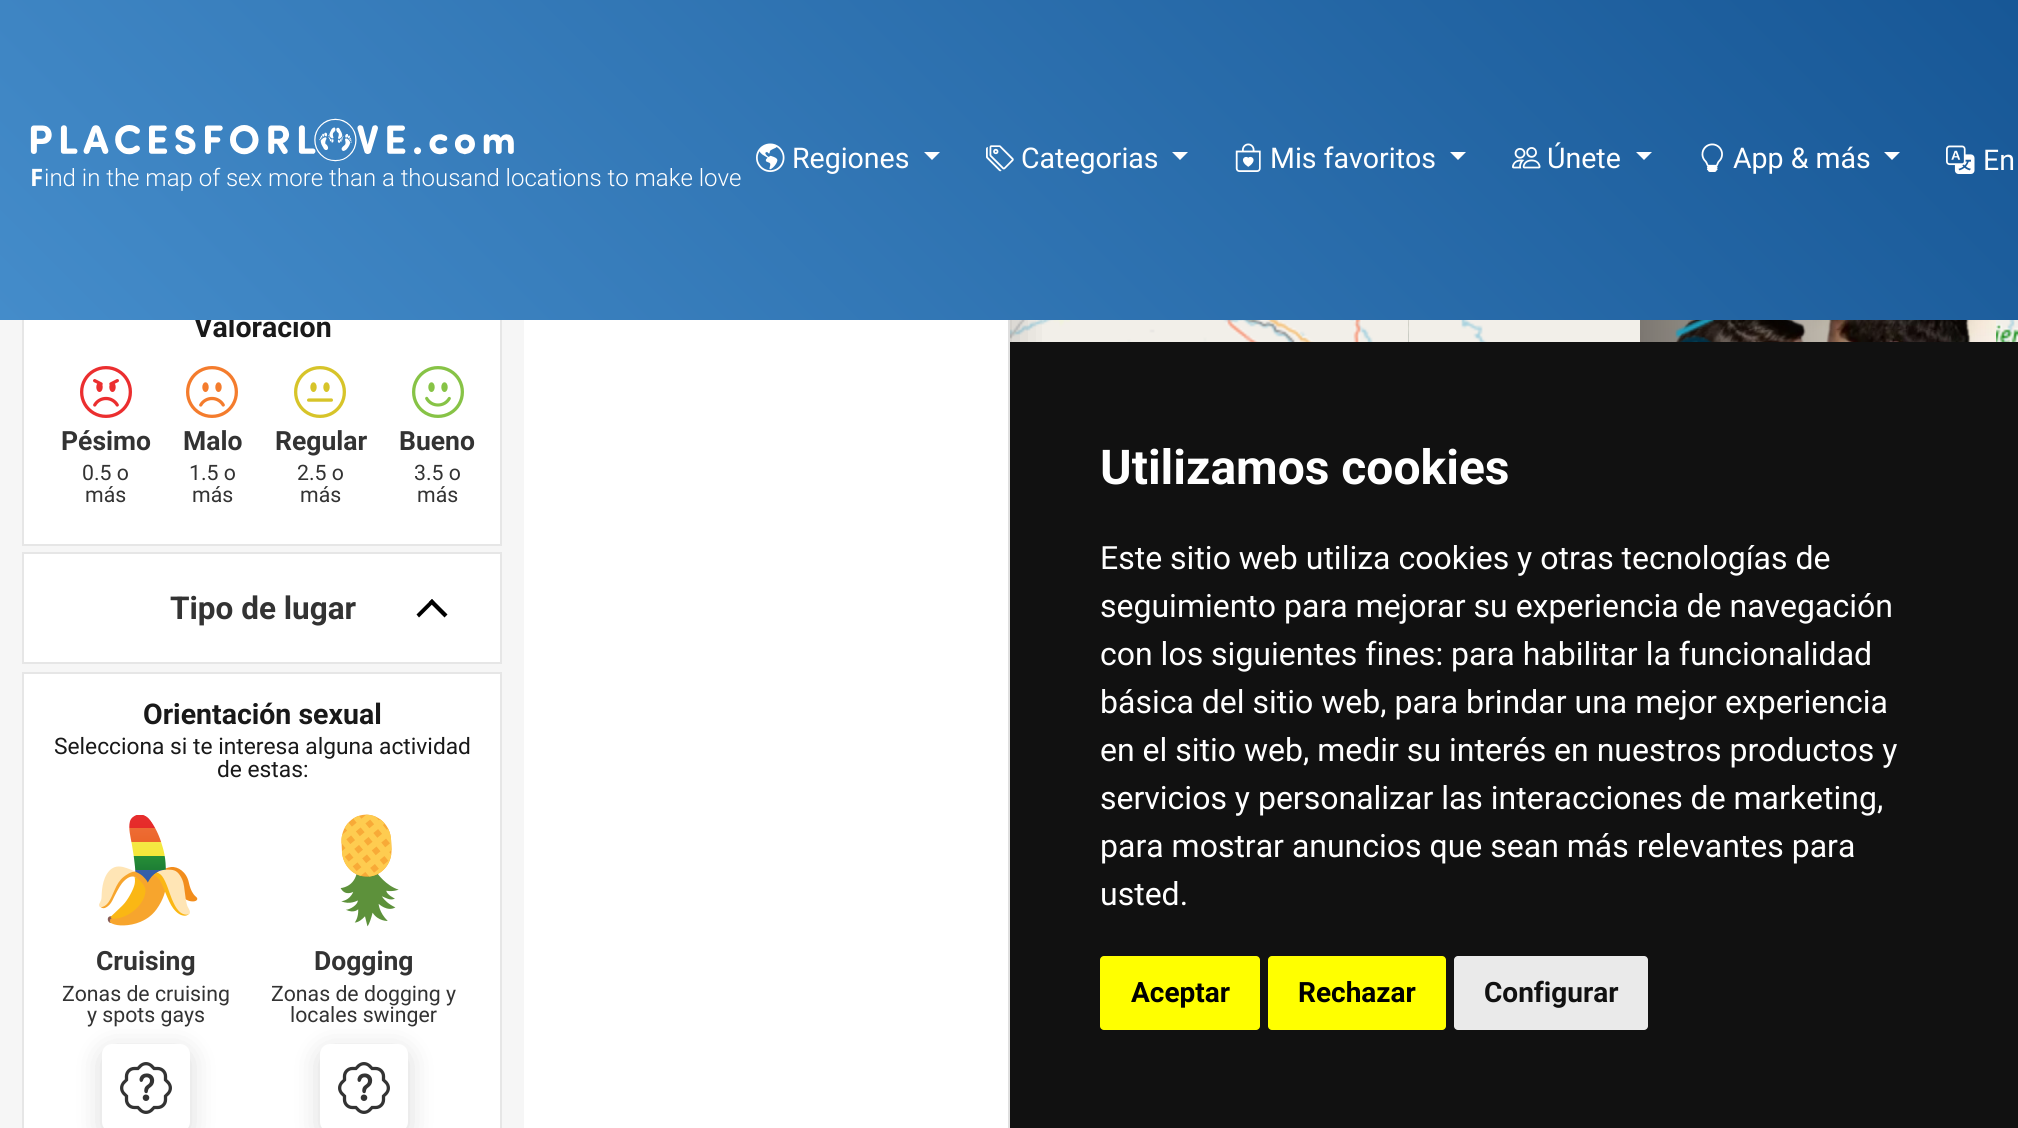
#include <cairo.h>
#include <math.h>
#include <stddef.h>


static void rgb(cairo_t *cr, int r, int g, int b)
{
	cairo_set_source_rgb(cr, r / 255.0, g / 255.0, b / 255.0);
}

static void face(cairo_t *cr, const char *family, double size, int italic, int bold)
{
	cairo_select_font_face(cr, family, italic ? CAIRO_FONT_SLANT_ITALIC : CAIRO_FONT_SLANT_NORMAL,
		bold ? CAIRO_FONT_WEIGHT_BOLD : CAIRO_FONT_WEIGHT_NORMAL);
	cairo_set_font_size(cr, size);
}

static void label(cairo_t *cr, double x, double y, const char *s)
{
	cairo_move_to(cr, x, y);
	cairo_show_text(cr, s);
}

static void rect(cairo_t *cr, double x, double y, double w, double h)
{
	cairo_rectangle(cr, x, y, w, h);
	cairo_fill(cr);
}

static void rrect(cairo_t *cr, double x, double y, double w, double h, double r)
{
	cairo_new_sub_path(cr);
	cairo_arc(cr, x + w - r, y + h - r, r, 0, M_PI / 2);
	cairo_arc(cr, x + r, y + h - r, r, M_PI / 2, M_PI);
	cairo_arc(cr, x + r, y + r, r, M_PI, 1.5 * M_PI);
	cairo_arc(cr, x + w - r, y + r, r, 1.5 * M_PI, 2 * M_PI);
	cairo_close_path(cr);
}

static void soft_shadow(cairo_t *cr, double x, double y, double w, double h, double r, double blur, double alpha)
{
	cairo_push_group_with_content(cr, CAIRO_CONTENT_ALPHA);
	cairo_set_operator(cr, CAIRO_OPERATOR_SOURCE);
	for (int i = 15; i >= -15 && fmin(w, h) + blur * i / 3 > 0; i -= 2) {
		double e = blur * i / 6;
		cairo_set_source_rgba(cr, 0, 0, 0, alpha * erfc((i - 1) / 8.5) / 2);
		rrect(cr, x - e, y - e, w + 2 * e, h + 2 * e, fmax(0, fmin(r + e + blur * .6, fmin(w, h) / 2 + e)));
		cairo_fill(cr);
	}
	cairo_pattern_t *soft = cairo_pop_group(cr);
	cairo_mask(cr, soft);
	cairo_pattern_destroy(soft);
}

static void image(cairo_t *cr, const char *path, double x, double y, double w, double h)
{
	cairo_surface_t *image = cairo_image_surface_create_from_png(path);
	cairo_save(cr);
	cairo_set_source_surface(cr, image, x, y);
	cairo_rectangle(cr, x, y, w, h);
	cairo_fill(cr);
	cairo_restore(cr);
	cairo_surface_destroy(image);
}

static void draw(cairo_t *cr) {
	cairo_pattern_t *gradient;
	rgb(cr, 255, 255, 255);
	cairo_paint(cr);
	image(cr, "image14.png", 1010, 320, 398, 22);
	cairo_save(cr);
	cairo_rectangle(cr, 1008, 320, 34, 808);
	cairo_clip(cr);
	rgb(cr, 0, 0, 0);
	soft_shadow(cr, 524, 176, 484, 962, 0, 24, 0.25);
	cairo_restore(cr);
	rgb(cr, 246, 246, 246);
	rect(cr, 0, 320, 524, 808);
	rgb(cr, 255, 255, 255);
	rect(cr, 24, 320, 476, 224);
	cairo_rectangle(cr, 23, 287, 478, 258);
	rgb(cr, 230, 230, 230);
	cairo_stroke(cr);
	face(cr, "Roboto", 28.5, 0, 1);
	rgb(cr, 25, 25, 25);
	label(cr, 194, 337, "Valoración");
	gradient = cairo_pattern_create_linear(425, 745, 1594, -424);
	cairo_pattern_add_color_stop_rgba(gradient, 0, 0.267, 0.549, 0.792, 1);
	cairo_pattern_add_color_stop_rgba(gradient, 1, 0.09, 0.341, 0.588, 1);
	cairo_set_source(cr, gradient);
	cairo_pattern_destroy(gradient);
	rect(cr, 0, 0, 2018, 320);
	image(cr, "image0.png", 756, 143, 29, 29);
	face(cr, "Roboto", 28.5, 0, 0);
	rgb(cr, 255, 255, 255);
	label(cr, 792, 168, "Regiones");
	cairo_new_path(cr);
	cairo_move_to(cr, 924, 152);
	cairo_line_to(cr, 940, 152);
	cairo_line_to(cr, 932, 160);
	cairo_close_path(cr);
	cairo_fill(cr);
	image(cr, "image1.png", 986, 145, 28, 27);
	label(cr, 1021, 168, "Categorias");
	cairo_new_path(cr);
	cairo_move_to(cr, 1172, 152);
	cairo_line_to(cr, 1188, 152);
	cairo_line_to(cr, 1180, 160);
	cairo_close_path(cr);
	cairo_fill(cr);
	image(cr, "image2.png", 1235, 143, 26, 29);
	label(cr, 1270, 168, "Mis favoritos");
	cairo_new_path(cr);
	cairo_move_to(cr, 1450, 152);
	cairo_line_to(cr, 1466, 152);
	cairo_line_to(cr, 1458, 160);
	cairo_close_path(cr);
	cairo_fill(cr);
	image(cr, "image3.png", 1512, 147, 29, 22);
	label(cr, 1547, 168, "Únete");
	cairo_new_path(cr);
	cairo_move_to(cr, 1636, 152);
	cairo_line_to(cr, 1652, 152);
	cairo_line_to(cr, 1644, 160);
	cairo_close_path(cr);
	cairo_fill(cr);
	image(cr, "image4.png", 1701, 143, 22, 29);
	label(cr, 1733, 168, "App & más");
	cairo_new_path(cr);
	cairo_move_to(cr, 1884, 152);
	cairo_line_to(cr, 1900, 152);
	cairo_line_to(cr, 1892, 160);
	cairo_close_path(cr);
	cairo_fill(cr);
	image(cr, "image5.png", 1946, 145, 29, 29);
	label(cr, 1983, 170, "En");
	image(cr, "image6.png", 30, 118, 484, 44);
	face(cr, "Noto Sans", 24, 0, 1);
	label(cr, 30, 186, "F");
	face(cr, "Roboto Light", 24, 0, 0);
	label(cr, 44, 186, "ind in the map of sex more than a thousand locations to make love");
	image(cr, "image7.png", 80, 366, 52, 52);
	face(cr, "Roboto", 26.5, 0, 1);
	rgb(cr, 51, 51, 51);
	label(cr, 61, 450, "Pésimo");
	face(cr, "Roboto", 21.25, 0, 0);
	label(cr, 82, 480, "0.5 o");
	label(cr, 85, 502, "más");
	image(cr, "image8.png", 186, 366, 52, 52);
	face(cr, "Roboto", 26.5, 0, 1);
	label(cr, 183, 450, "Malo");
	face(cr, "Roboto", 21.25, 0, 0);
	label(cr, 189, 480, "1.5 o");
	label(cr, 192, 502, "más");
	image(cr, "image9.png", 294, 366, 52, 52);
	face(cr, "Roboto", 26.5, 0, 1);
	label(cr, 275, 450, "Regular");
	face(cr, "Roboto", 21.25, 0, 0);
	label(cr, 297, 480, "2.5 o");
	label(cr, 300, 502, "más");
	image(cr, "image10.png", 412, 366, 52, 52);
	face(cr, "Roboto", 26.5, 0, 1);
	label(cr, 399, 450, "Bueno");
	face(cr, "Roboto", 21.25, 0, 0);
	label(cr, 414, 480, "3.5 o");
	label(cr, 417, 502, "más");
	rgb(cr, 255, 255, 255);
	cairo_rectangle(cr, 23, 553, 478, 110);
	cairo_fill_preserve(cr);
	rgb(cr, 230, 230, 230);
	cairo_stroke(cr);
	face(cr, "Roboto", 31.5, 0, 1);
	rgb(cr, 51, 51, 51);
	label(cr, 170, 619, "Tipo de lugar");
	rgb(cr, 0, 0, 0);
	cairo_new_path(cr);
	cairo_move_to(cr, 434.5, 602);
	cairo_line_to(cr, 419, 617.5);
	cairo_line_to(cr, 416.5, 614.5);
	cairo_line_to(cr, 432, 599);
	cairo_close_path(cr);
	cairo_fill(cr);
	cairo_new_path(cr);
	cairo_move_to(cr, 447.5, 614.5);
	cairo_line_to(cr, 444.5, 617.5);
	cairo_line_to(cr, 429, 602);
	cairo_line_to(cr, 432, 599);
	cairo_close_path(cr);
	cairo_fill(cr);
	rgb(cr, 255, 255, 255);
	cairo_rectangle(cr, 23, 673, 478, 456);
	cairo_fill_preserve(cr);
	rgb(cr, 230, 230, 230);
	cairo_stroke(cr);
	face(cr, "Roboto", 28.5, 0, 1);
	rgb(cr, 25, 25, 25);
	label(cr, 143, 724, "Orientación sexual");
	face(cr, "Roboto", 22.75, 0, 0);
	label(cr, 54, 754, "Selecciona si te interesa alguna actividad");
	label(cr, 217, 777, "de estas:");
	image(cr, "image11.png", 99, 815, 99, 111);
	face(cr, "Roboto", 26.5, 0, 1);
	rgb(cr, 51, 51, 51);
	label(cr, 96, 970, "Cruising");
	face(cr, "Roboto", 21.25, 0, 0);
	label(cr, 62, 1001, "Zonas de cruising");
	label(cr, 87, 1022, "y spots gays");
	rgb(cr, 0, 0, 0);
	soft_shadow(cr, 102, 1050, 88, 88, 10, 14, 0.15);
	rgb(cr, 255, 255, 255);
	rrect(cr, 102, 1044, 88, 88, 10);
	cairo_fill(cr);
	image(cr, "image12.png", 120, 1062, 52, 52);
	image(cr, "image13.png", 340, 814, 59, 113);
	face(cr, "Roboto", 26.5, 0, 1);
	rgb(cr, 51, 51, 51);
	label(cr, 314, 970, "Dogging");
	face(cr, "Roboto", 21.25, 0, 0);
	label(cr, 271, 1001, "Zonas de dogging y");
	label(cr, 290, 1022, "locales swinger");
	rgb(cr, 0, 0, 0);
	soft_shadow(cr, 320, 1050, 88, 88, 10, 14, 0.15);
	rgb(cr, 255, 255, 255);
	rrect(cr, 320, 1044, 88, 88, 10);
	cairo_fill(cr);
	image(cr, "image12.png", 338, 1062, 52, 52);
	image(cr, "image17.png", 1408, 320, 1, 22);
	image(cr, "image15.png", 1408, 320, 232, 22);
	image(cr, "image16.png", 1996, 320, 22, 22);
	image(cr, "image18.png", 1640, 320, 356, 22);
	image(cr, "image19.png", 1675, 320, 41, 22);
	rgb(cr, 17, 17, 17);
	rect(cr, 1010, 342, 1008, 786);
	face(cr, "Roboto", 48, 0, 1);
	rgb(cr, 255, 255, 255);
	label(cr, 1100, 484, "Utilizamos cookies");
	face(cr, "Roboto", 32, 0, 0);
	label(cr, 1100, 569, "Este sitio web utiliza cookies y otras tecnologías de");
	label(cr, 1100, 617, "seguimiento para mejorar su experiencia de navegación");
	label(cr, 1100, 665, "con los siguientes fines: para habilitar la funcionalidad");
	label(cr, 1100, 713, "básica del sitio web, para brindar una mejor experiencia");
	label(cr, 1100, 761, "en el sitio web, medir su interés en nuestros productos y");
	label(cr, 1100, 809, "servicios y personalizar las interacciones de marketing,");
	label(cr, 1100, 857, "para mostrar anuncios que sean más relevantes para");
	label(cr, 1100, 905, "usted.");
	rgb(cr, 255, 255, 0);
	rrect(cr, 1100, 956, 160, 74, 4);
	cairo_fill(cr);
	face(cr, "Roboto", 28, 0, 1);
	rgb(cr, 0, 0, 0);
	label(cr, 1131, 1002, "Aceptar");
	rgb(cr, 255, 255, 0);
	rrect(cr, 1268, 956, 178, 74, 4);
	cairo_fill(cr);
	rgb(cr, 0, 0, 0);
	label(cr, 1298, 1002, "Rechazar");
	rgb(cr, 234, 234, 234);
	rrect(cr, 1454, 956, 194, 74, 4);
	cairo_fill(cr);
	rgb(cr, 17, 17, 17);
	label(cr, 1484, 1002, "Configurar");
}

int main(void) {
	cairo_surface_t *surface = cairo_image_surface_create(CAIRO_FORMAT_RGB24, 2018, 1128);
	cairo_t *cr = cairo_create(surface);
	cairo_font_options_t *options = cairo_font_options_create();
	cairo_font_options_set_hint_metrics(options, CAIRO_HINT_METRICS_OFF);
	cairo_font_options_set_hint_style(options, CAIRO_HINT_STYLE_NONE);
	cairo_set_font_options(cr, options);
	cairo_set_miter_limit(cr, 4);
	draw(cr);
	cairo_surface_write_to_png(surface, "render.png");
	cairo_font_options_destroy(options);
	cairo_destroy(cr);
	cairo_surface_destroy(surface);
	return 0;
}
